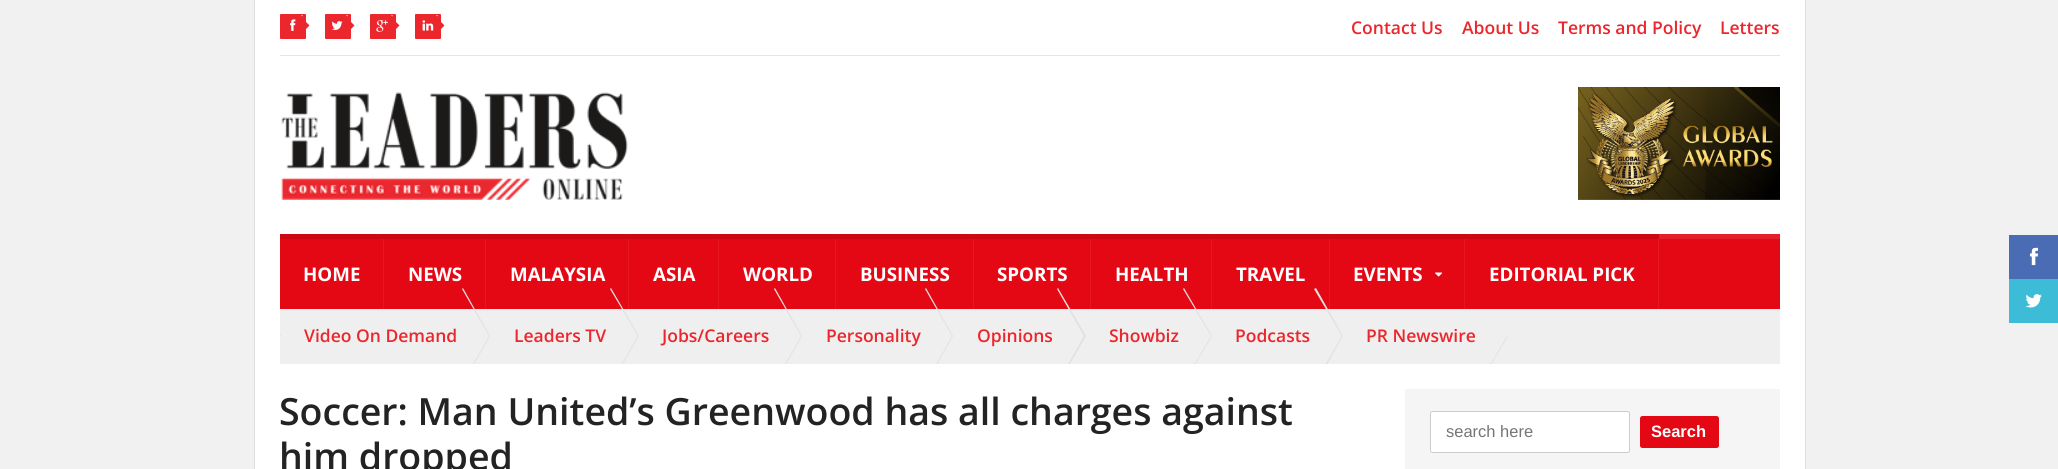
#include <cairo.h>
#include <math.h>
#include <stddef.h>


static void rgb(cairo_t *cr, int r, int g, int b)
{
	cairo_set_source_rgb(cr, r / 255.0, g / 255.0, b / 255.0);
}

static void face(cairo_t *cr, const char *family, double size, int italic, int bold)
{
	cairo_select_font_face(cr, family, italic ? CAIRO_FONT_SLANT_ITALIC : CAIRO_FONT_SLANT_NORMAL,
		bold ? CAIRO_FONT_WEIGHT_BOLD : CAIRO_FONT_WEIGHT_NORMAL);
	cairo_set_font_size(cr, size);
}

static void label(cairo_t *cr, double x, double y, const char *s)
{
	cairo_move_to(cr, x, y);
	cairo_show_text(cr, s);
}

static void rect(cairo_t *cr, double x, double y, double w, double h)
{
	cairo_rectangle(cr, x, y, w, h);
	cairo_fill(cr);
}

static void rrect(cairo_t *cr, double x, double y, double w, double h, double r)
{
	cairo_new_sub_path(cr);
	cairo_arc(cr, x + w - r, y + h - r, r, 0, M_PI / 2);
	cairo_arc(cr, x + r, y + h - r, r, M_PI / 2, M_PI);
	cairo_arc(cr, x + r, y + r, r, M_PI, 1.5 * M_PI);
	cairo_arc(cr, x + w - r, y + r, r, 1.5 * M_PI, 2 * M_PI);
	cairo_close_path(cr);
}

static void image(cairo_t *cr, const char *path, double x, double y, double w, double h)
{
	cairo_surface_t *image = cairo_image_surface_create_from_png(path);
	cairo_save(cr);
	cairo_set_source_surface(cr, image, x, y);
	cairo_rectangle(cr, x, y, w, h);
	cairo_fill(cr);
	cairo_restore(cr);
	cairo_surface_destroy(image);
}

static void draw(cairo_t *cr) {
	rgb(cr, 241, 241, 241);
	cairo_paint(cr);
	cairo_rectangle(cr, 254.5, -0.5, 1551, 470);
	rgb(cr, 222, 222, 222);
	cairo_set_line_width(cr, 1);
	cairo_stroke(cr);
	rgb(cr, 255, 255, 255);
	rect(cr, 255, 0, 1550, 469);
	rgb(cr, 229, 229, 229);
	rect(cr, 280, 55, 1500, 1);
	rgb(cr, 235, 38, 44);
	rrect(cr, 280, 14, 26, 25, 1);
	cairo_fill(cr);
	image(cr, "image0.png", 290, 19, 6, 12);
	cairo_new_path(cr);
	cairo_move_to(cr, 305, 21);
	cairo_line_to(cr, 309.5, 25.5);
	cairo_line_to(cr, 305, 30);
	cairo_line_to(cr, 300.5, 25.5);
	cairo_close_path(cr);
	cairo_fill(cr);
	rgb(cr, 255, 255, 255);
	cairo_new_path(cr);
	cairo_move_to(cr, 302.5, 15);
	cairo_line_to(cr, 302.5, 16.5);
	cairo_line_to(cr, 301, 15);
	cairo_close_path(cr);
	cairo_fill(cr);
	rgb(cr, 235, 38, 44);
	rrect(cr, 325, 14, 26, 25, 1);
	cairo_fill(cr);
	image(cr, "image1.png", 331, 21, 12, 9);
	cairo_new_path(cr);
	cairo_move_to(cr, 350, 21);
	cairo_line_to(cr, 354.5, 25.5);
	cairo_line_to(cr, 350, 30);
	cairo_line_to(cr, 345.5, 25.5);
	cairo_close_path(cr);
	cairo_fill(cr);
	rgb(cr, 255, 255, 255);
	cairo_new_path(cr);
	cairo_move_to(cr, 347.5, 15);
	cairo_line_to(cr, 347.5, 16.5);
	cairo_line_to(cr, 346, 15);
	cairo_close_path(cr);
	cairo_fill(cr);
	rgb(cr, 235, 38, 44);
	rrect(cr, 370, 14, 26, 25, 1);
	cairo_fill(cr);
	image(cr, "image2.png", 376, 20, 12, 12);
	cairo_new_path(cr);
	cairo_move_to(cr, 395, 21);
	cairo_line_to(cr, 399.5, 25.5);
	cairo_line_to(cr, 395, 30);
	cairo_line_to(cr, 390.5, 25.5);
	cairo_close_path(cr);
	cairo_fill(cr);
	rgb(cr, 255, 255, 255);
	cairo_new_path(cr);
	cairo_move_to(cr, 392.5, 15);
	cairo_line_to(cr, 392.5, 16.5);
	cairo_line_to(cr, 391, 15);
	cairo_close_path(cr);
	cairo_fill(cr);
	rgb(cr, 235, 38, 44);
	rrect(cr, 415, 14, 26, 25, 1);
	cairo_fill(cr);
	image(cr, "image3.png", 422, 20, 12, 11);
	cairo_new_path(cr);
	cairo_move_to(cr, 440, 21);
	cairo_line_to(cr, 444.5, 25.5);
	cairo_line_to(cr, 440, 30);
	cairo_line_to(cr, 435.5, 25.5);
	cairo_close_path(cr);
	cairo_fill(cr);
	rgb(cr, 255, 255, 255);
	cairo_new_path(cr);
	cairo_move_to(cr, 437.5, 15);
	cairo_line_to(cr, 437.5, 16.5);
	cairo_line_to(cr, 436, 15);
	cairo_close_path(cr);
	cairo_fill(cr);
	face(cr, "Open Sans SemiBold", 17.5, 0, 0);
	rgb(cr, 235, 38, 44);
	label(cr, 1351, 34, "Contact Us");
	label(cr, 1462, 34, "About Us");
	label(cr, 1558, 34, "Terms and Policy");
	label(cr, 1720, 34, "Letters");
	image(cr, "image4.png", 281, 92, 347, 108);
	image(cr, "image5.png", 1578, 87, 202, 113);
	rgb(cr, 228, 8, 20);
	rect(cr, 1659, 239, 121, 70);
	rgb(cr, 230, 30, 41);
	rect(cr, 1659, 234, 121, 5);
	rgb(cr, 228, 8, 20);
	rect(cr, 280, 239, 103, 70);
	rgb(cr, 207, 7, 18);
	rect(cr, 280, 234, 1379, 5);
	face(cr, "Open Sans", 18.75, 0, 1);
	rgb(cr, 255, 255, 255);
	label(cr, 303, 281, "HOME");
	rgb(cr, 230, 23, 34);
	rect(cr, 383, 239, 1, 70);
	rgb(cr, 228, 8, 20);
	rect(cr, 384, 239, 101, 70);
	rgb(cr, 255, 255, 255);
	label(cr, 408, 281, "NEWS");
	rgb(cr, 230, 23, 34);
	rect(cr, 485, 239, 1, 70);
	rgb(cr, 228, 8, 20);
	rect(cr, 486, 239, 142, 70);
	rgb(cr, 255, 255, 255);
	label(cr, 510, 281, "MALAYSIA");
	rgb(cr, 230, 23, 34);
	rect(cr, 628, 239, 1, 70);
	rgb(cr, 228, 8, 20);
	rect(cr, 629, 239, 89, 70);
	rgb(cr, 255, 255, 255);
	label(cr, 653, 281, "ASIA");
	rgb(cr, 230, 23, 34);
	rect(cr, 718, 239, 1, 70);
	rgb(cr, 228, 8, 20);
	rect(cr, 719, 239, 116, 70);
	rgb(cr, 255, 255, 255);
	label(cr, 743, 281, "WORLD");
	rgb(cr, 230, 23, 34);
	rect(cr, 835, 239, 1, 70);
	rgb(cr, 228, 8, 20);
	rect(cr, 836, 239, 137, 70);
	rgb(cr, 255, 255, 255);
	label(cr, 860, 281, "BUSINESS");
	rgb(cr, 230, 23, 34);
	rect(cr, 973, 239, 1, 70);
	rgb(cr, 228, 8, 20);
	rect(cr, 974, 239, 116, 70);
	rgb(cr, 255, 255, 255);
	label(cr, 997, 281, "SPORTS");
	rgb(cr, 230, 23, 34);
	rect(cr, 1090, 239, 1, 70);
	rgb(cr, 228, 8, 20);
	rect(cr, 1091, 239, 238, 70);
	rgb(cr, 255, 255, 255);
	label(cr, 1115, 281, "HEALTH");
	rgb(cr, 230, 23, 34);
	rect(cr, 1211, 239, 1, 70);
	rgb(cr, 255, 255, 255);
	label(cr, 1236, 281, "TRAVEL");
	rgb(cr, 230, 23, 34);
	rect(cr, 1329, 239, 1, 70);
	rgb(cr, 228, 8, 20);
	rect(cr, 1330, 239, 134, 70);
	rgb(cr, 255, 255, 255);
	label(cr, 1353, 281, "EVENTS");
	image(cr, "image6.png", 1435, 272, 8, 5);
	rgb(cr, 230, 23, 34);
	rect(cr, 1464, 239, 1, 70);
	rgb(cr, 228, 8, 20);
	rect(cr, 1465, 239, 193, 70);
	rgb(cr, 255, 255, 255);
	label(cr, 1489, 281, "EDITORIAL PICK");
	rgb(cr, 230, 23, 34);
	rect(cr, 1658, 239, 1, 70);
	rgb(cr, 239, 239, 239);
	rect(cr, 280, 309, 1500, 55);
	cairo_save(cr);
	cairo_rectangle(cr, 280, 309, 1500, 55);
	cairo_clip(cr);
	rgb(cr, 224, 224, 224);
	cairo_new_path(cr);
	cairo_move_to(cr, 252, 289);
	cairo_line_to(cr, 253, 288);
	cairo_line_to(cr, 281, 336);
	cairo_line_to(cr, 280, 336);
	cairo_close_path(cr);
	cairo_fill(cr);
	cairo_restore(cr);
	face(cr, "Open Sans SemiBold", 17.5, 0, 0);
	rgb(cr, 235, 38, 44);
	label(cr, 304, 342, "Video On Demand");
	rgb(cr, 224, 224, 224);
	cairo_new_path(cr);
	cairo_move_to(cr, 462, 289);
	cairo_line_to(cr, 463, 288);
	cairo_line_to(cr, 490, 336);
	cairo_line_to(cr, 489, 336);
	cairo_close_path(cr);
	cairo_fill(cr);
	rgb(cr, 235, 38, 44);
	label(cr, 514, 342, "Leaders TV");
	cairo_save(cr);
	cairo_rectangle(cr, 280, 309, 1500, 55);
	cairo_clip(cr);
	rgb(cr, 224, 224, 224);
	cairo_new_path(cr);
	cairo_move_to(cr, 489, 336);
	cairo_line_to(cr, 490, 336);
	cairo_line_to(cr, 463, 384);
	cairo_line_to(cr, 462, 384);
	cairo_close_path(cr);
	cairo_fill(cr);
	cairo_restore(cr);
	rgb(cr, 224, 224, 224);
	cairo_new_path(cr);
	cairo_move_to(cr, 610, 289);
	cairo_line_to(cr, 611, 288);
	cairo_line_to(cr, 639, 336);
	cairo_line_to(cr, 638, 336);
	cairo_close_path(cr);
	cairo_fill(cr);
	rgb(cr, 235, 38, 44);
	label(cr, 662, 342, "Jobs/Careers");
	cairo_save(cr);
	cairo_rectangle(cr, 280, 309, 1500, 55);
	cairo_clip(cr);
	rgb(cr, 224, 224, 224);
	cairo_new_path(cr);
	cairo_move_to(cr, 638, 336);
	cairo_line_to(cr, 639, 336);
	cairo_line_to(cr, 611, 384);
	cairo_line_to(cr, 610, 384);
	cairo_close_path(cr);
	cairo_fill(cr);
	cairo_restore(cr);
	rgb(cr, 224, 224, 224);
	cairo_new_path(cr);
	cairo_move_to(cr, 774, 289);
	cairo_line_to(cr, 775, 288);
	cairo_line_to(cr, 802, 336);
	cairo_line_to(cr, 801, 336);
	cairo_close_path(cr);
	cairo_fill(cr);
	rgb(cr, 235, 38, 44);
	label(cr, 826, 342, "Personality");
	cairo_save(cr);
	cairo_rectangle(cr, 280, 309, 1500, 55);
	cairo_clip(cr);
	rgb(cr, 224, 224, 224);
	cairo_new_path(cr);
	cairo_move_to(cr, 801, 336);
	cairo_line_to(cr, 802, 336);
	cairo_line_to(cr, 775, 384);
	cairo_line_to(cr, 774, 384);
	cairo_close_path(cr);
	cairo_fill(cr);
	cairo_restore(cr);
	rgb(cr, 224, 224, 224);
	cairo_new_path(cr);
	cairo_move_to(cr, 925, 289);
	cairo_line_to(cr, 926, 288);
	cairo_line_to(cr, 953, 336);
	cairo_line_to(cr, 952, 336);
	cairo_close_path(cr);
	cairo_fill(cr);
	rgb(cr, 235, 38, 44);
	label(cr, 977, 342, "Opinions");
	cairo_save(cr);
	cairo_rectangle(cr, 280, 309, 1500, 55);
	cairo_clip(cr);
	rgb(cr, 224, 224, 224);
	cairo_new_path(cr);
	cairo_move_to(cr, 952, 336);
	cairo_line_to(cr, 953, 336);
	cairo_line_to(cr, 926, 384);
	cairo_line_to(cr, 925, 384);
	cairo_close_path(cr);
	cairo_fill(cr);
	cairo_restore(cr);
	rgb(cr, 224, 224, 224);
	cairo_new_path(cr);
	cairo_move_to(cr, 1057, 289);
	cairo_line_to(cr, 1058, 288);
	cairo_line_to(cr, 1086, 336);
	cairo_line_to(cr, 1084, 336);
	cairo_close_path(cr);
	cairo_fill(cr);
	rgb(cr, 235, 38, 44);
	label(cr, 1109, 342, "Showbiz");
	cairo_save(cr);
	cairo_rectangle(cr, 280, 309, 1500, 55);
	cairo_clip(cr);
	rgb(cr, 224, 224, 224);
	cairo_new_path(cr);
	cairo_move_to(cr, 1084, 336);
	cairo_line_to(cr, 1086, 336);
	cairo_line_to(cr, 1058, 384);
	cairo_line_to(cr, 1057, 384);
	cairo_close_path(cr);
	cairo_fill(cr);
	cairo_restore(cr);
	rgb(cr, 224, 224, 224);
	cairo_new_path(cr);
	cairo_move_to(cr, 1183, 289);
	cairo_line_to(cr, 1184, 288);
	cairo_line_to(cr, 1212, 336);
	cairo_line_to(cr, 1211, 336);
	cairo_close_path(cr);
	cairo_fill(cr);
	rgb(cr, 235, 38, 44);
	label(cr, 1235, 342, "Podcasts");
	cairo_save(cr);
	cairo_rectangle(cr, 280, 309, 1500, 55);
	cairo_clip(cr);
	rgb(cr, 224, 224, 224);
	cairo_new_path(cr);
	cairo_move_to(cr, 1211, 336);
	cairo_line_to(cr, 1212, 336);
	cairo_line_to(cr, 1184, 384);
	cairo_line_to(cr, 1183, 384);
	cairo_close_path(cr);
	cairo_fill(cr);
	cairo_restore(cr);
	rgb(cr, 224, 224, 224);
	cairo_new_path(cr);
	cairo_move_to(cr, 1314, 289);
	cairo_line_to(cr, 1316, 288);
	cairo_line_to(cr, 1343, 336);
	cairo_line_to(cr, 1342, 336);
	cairo_close_path(cr);
	cairo_fill(cr);
	rgb(cr, 235, 38, 44);
	label(cr, 1366, 342, "PR Newswire");
	cairo_save(cr);
	cairo_rectangle(cr, 280, 309, 1500, 55);
	cairo_clip(cr);
	rgb(cr, 224, 224, 224);
	cairo_new_path(cr);
	cairo_move_to(cr, 1342, 336);
	cairo_line_to(cr, 1343, 336);
	cairo_line_to(cr, 1316, 384);
	cairo_line_to(cr, 1314, 384);
	cairo_close_path(cr);
	cairo_fill(cr);
	cairo_new_path(cr);
	cairo_move_to(cr, 1507, 336);
	cairo_line_to(cr, 1508, 336);
	cairo_line_to(cr, 1480, 384);
	cairo_line_to(cr, 1479, 384);
	cairo_close_path(cr);
	cairo_fill(cr);
	cairo_restore(cr);
	rgb(cr, 73, 108, 180);
	rect(cr, 2009, 235, 49, 44);
	image(cr, "image7.png", 2030, 247, 8, 19);
	rgb(cr, 60, 188, 215);
	rect(cr, 2009, 279, 49, 44);
	image(cr, "image8.png", 2025, 294, 17, 14);
	face(cr, "Open Sans SemiBold", 37.5, 0, 0);
	rgb(cr, 35, 35, 35);
	label(cr, 279, 425, "Soccer: Man United’s Greenwood has all charges against");
	label(cr, 279, 470, "him dropped");
	rgb(cr, 245, 245, 245);
	rect(cr, 1405, 389, 375, 80);
	rgb(cr, 255, 255, 255);
	rrect(cr, 1430.5, 411.5, 199, 41, 2);
	cairo_fill_preserve(cr);
	rgb(cr, 204, 204, 204);
	cairo_stroke(cr);
	face(cr, "Liberation Sans", 16.5, 0, 0);
	rgb(cr, 117, 117, 117);
	label(cr, 1446, 437, "search here");
	rgb(cr, 228, 8, 20);
	rrect(cr, 1640, 416, 79, 32, 2.5);
	cairo_fill(cr);
	face(cr, "Liberation Sans", 16.5, 0, 1);
	rgb(cr, 255, 255, 255);
	label(cr, 1651, 437, "Search");
}

int main(void) {
	cairo_surface_t *surface = cairo_image_surface_create(CAIRO_FORMAT_RGB24, 2058, 469);
	cairo_t *cr = cairo_create(surface);
	cairo_font_options_t *options = cairo_font_options_create();
	cairo_font_options_set_hint_metrics(options, CAIRO_HINT_METRICS_OFF);
	cairo_font_options_set_hint_style(options, CAIRO_HINT_STYLE_NONE);
	cairo_set_font_options(cr, options);
	cairo_set_miter_limit(cr, 4);
	draw(cr);
	cairo_surface_write_to_png(surface, "render.png");
	cairo_font_options_destroy(options);
	cairo_destroy(cr);
	cairo_surface_destroy(surface);
	return 0;
}
